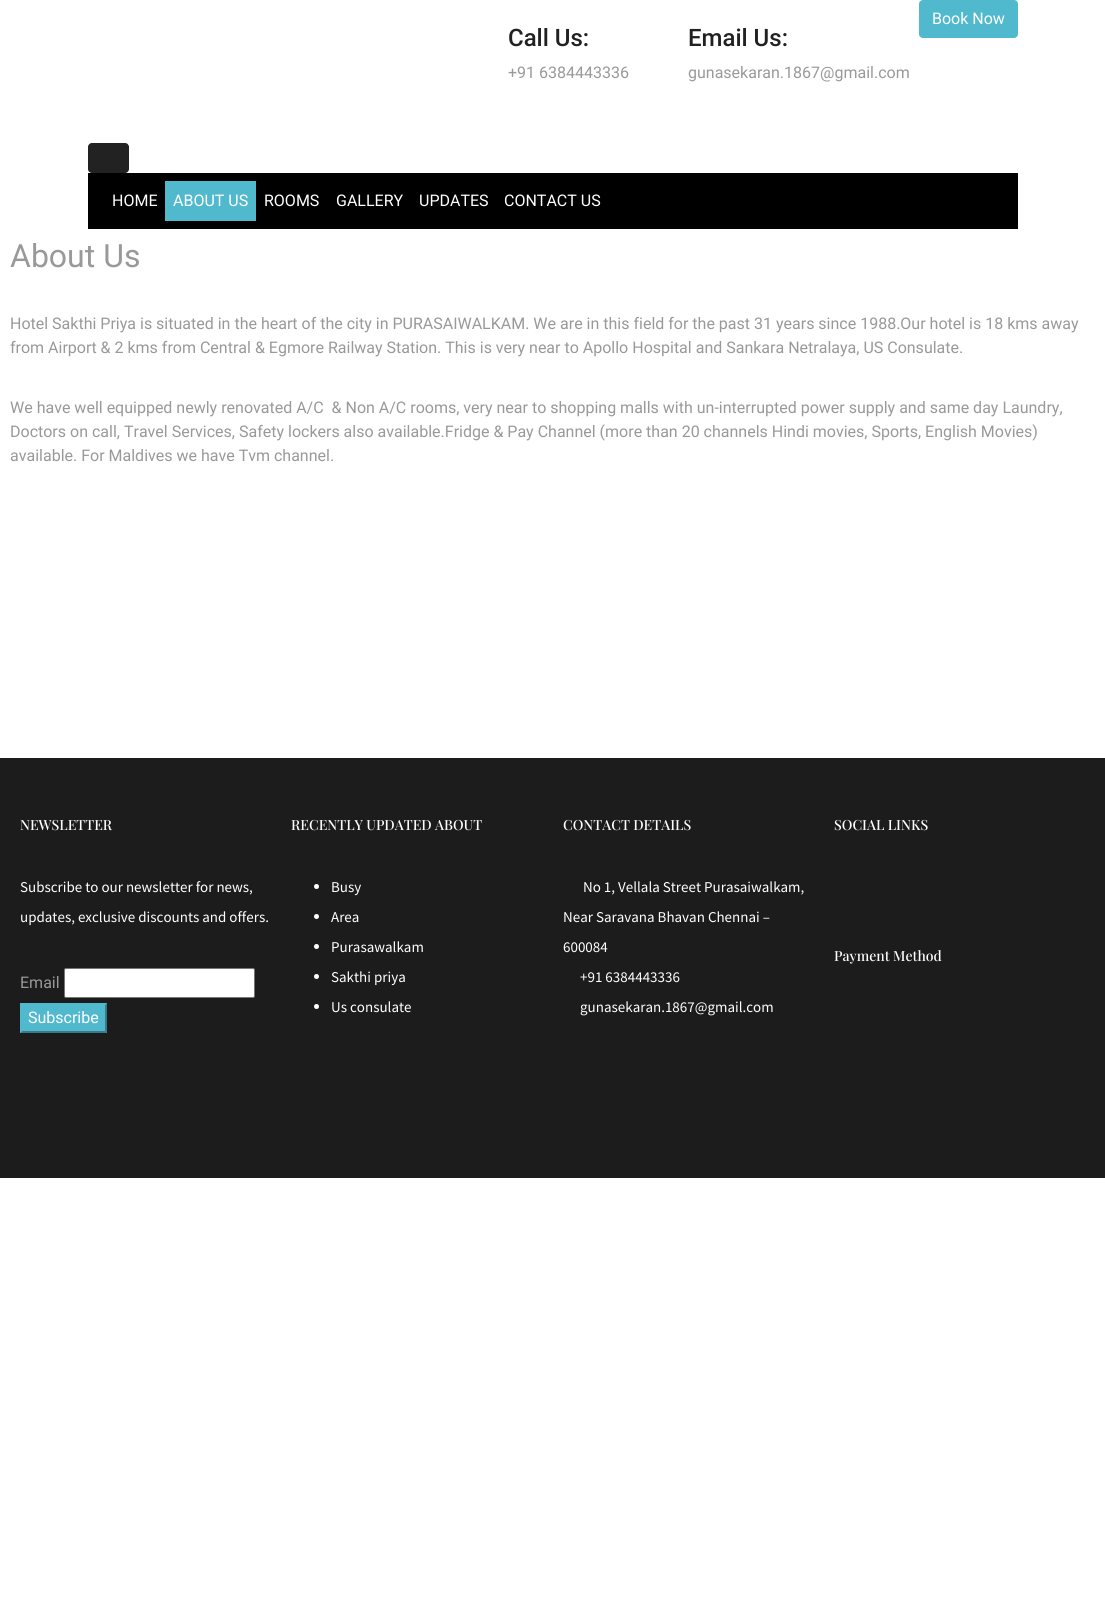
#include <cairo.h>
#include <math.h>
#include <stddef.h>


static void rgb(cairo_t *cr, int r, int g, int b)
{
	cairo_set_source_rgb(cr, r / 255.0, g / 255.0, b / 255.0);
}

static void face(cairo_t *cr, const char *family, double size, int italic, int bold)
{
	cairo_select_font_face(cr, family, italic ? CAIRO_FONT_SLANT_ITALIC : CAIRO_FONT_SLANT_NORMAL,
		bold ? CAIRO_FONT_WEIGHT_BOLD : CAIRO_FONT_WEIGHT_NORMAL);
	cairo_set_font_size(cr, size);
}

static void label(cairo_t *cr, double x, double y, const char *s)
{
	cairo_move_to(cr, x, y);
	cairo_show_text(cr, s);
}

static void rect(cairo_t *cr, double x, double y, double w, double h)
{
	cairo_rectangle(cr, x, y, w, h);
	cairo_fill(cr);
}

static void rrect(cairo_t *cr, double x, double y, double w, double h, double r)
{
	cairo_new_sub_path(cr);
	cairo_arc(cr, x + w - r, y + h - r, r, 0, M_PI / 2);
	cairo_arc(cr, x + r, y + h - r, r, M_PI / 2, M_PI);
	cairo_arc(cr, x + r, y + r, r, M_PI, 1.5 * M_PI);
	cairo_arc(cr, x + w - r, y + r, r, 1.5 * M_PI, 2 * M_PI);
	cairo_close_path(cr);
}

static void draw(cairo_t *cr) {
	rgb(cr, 255, 255, 255);
	cairo_paint(cr);
	rgb(cr, 80, 185, 206);
	rrect(cr, 919.5, 0.5, 98, 37, 3.5);
	cairo_fill_preserve(cr);
	cairo_set_line_width(cr, 1);
	cairo_stroke(cr);
	face(cr, "Roboto", 16, 0, 0);
	rgb(cr, 255, 255, 255);
	label(cr, 932, 24, "Book Now");
	face(cr, "Roboto Medium", 24, 0, 0);
	rgb(cr, 33, 33, 33);
	label(cr, 508, 46, "Call Us:");
	face(cr, "Roboto", 16, 0, 0);
	rgb(cr, 153, 153, 153);
	label(cr, 508, 78, "+91 6384443336");
	face(cr, "Roboto Medium", 24, 0, 0);
	rgb(cr, 33, 33, 33);
	label(cr, 688, 46, "Email Us:");
	face(cr, "Roboto", 16, 0, 0);
	rgb(cr, 153, 153, 153);
	label(cr, 688, 78, "gunasekaran.1867@gmail.com");
	rgb(cr, 34, 34, 34);
	rrect(cr, 88, 143, 41, 30, 4);
	cairo_fill(cr);
	rgb(cr, 0, 0, 0);
	rect(cr, 88, 173, 930, 56);
	rgb(cr, 255, 255, 255);
	label(cr, 112, 206, "HOME");
	rgb(cr, 80, 185, 206);
	rect(cr, 165, 181, 91, 40);
	rgb(cr, 255, 255, 255);
	label(cr, 173, 206, "ABOUT US");
	label(cr, 264, 206, "ROOMS");
	label(cr, 336, 206, "GALLERY");
	label(cr, 419, 206, "UPDATES");
	label(cr, 504, 206, "CONTACT US");
	face(cr, "Roboto", 32, 0, 0);
	rgb(cr, 153, 153, 153);
	label(cr, 10, 267, "About Us");
	face(cr, "Roboto", 16, 0, 0);
	label(cr, 10, 329, "Hotel Sakthi Priya is situated in the heart of the city in PURASAIWALKAM. We are in this field for the past 31 years since 1988.Our hotel is 18 kms away");
	label(cr, 10, 353, "from Airport & 2 kms from Central & Egmore Railway Station. This is very near to Apollo Hospital and Sankara Netralaya, US Consulate.");
	label(cr, 10, 413, "We have well equipped newly renovated A/C  & Non A/C rooms, very near to shopping malls with un-interrupted power supply and same day Laundry,");
	label(cr, 10, 437, "Doctors on call, Travel Services, Safety lockers also available.Fridge & Pay Channel (more than 20 channels Hindi movies, Sports, English Movies)");
	label(cr, 10, 461, "available. For Maldives we have Tvm channel.");
	rgb(cr, 28, 28, 28);
	rect(cr, 0, 758, 1105, 420);
	face(cr, "Playfair Display Medium", 14, 0, 0);
	rgb(cr, 255, 255, 255);
	label(cr, 20, 830, "NEWSLETTER");
	face(cr, "Source Sans Pro", 15, 0, 0);
	label(cr, 20, 892, "Subscribe to our newsletter for news,");
	label(cr, 20, 922, "updates, exclusive discounts and offers.");
	face(cr, "Roboto", 16, 0, 0);
	rgb(cr, 153, 153, 153);
	label(cr, 20, 988, "Email");
	rgb(cr, 255, 255, 255);
	rrect(cr, 64.5, 968.5, 190, 29, 1.5);
	cairo_fill_preserve(cr);
	rgb(cr, 118, 118, 118);
	cairo_stroke(cr);
	rgb(cr, 80, 185, 206);
	rect(cr, 20, 1003, 87, 30);
	rgb(cr, 53, 123, 137);
	cairo_new_path(cr);
	cairo_move_to(cr, 107, 1003);
	cairo_line_to(cr, 107, 1033);
	cairo_line_to(cr, 105, 1031);
	cairo_line_to(cr, 105, 1005);
	cairo_close_path(cr);
	cairo_fill(cr);
	cairo_new_path(cr);
	cairo_move_to(cr, 107, 1033);
	cairo_line_to(cr, 20, 1033);
	cairo_line_to(cr, 22, 1031);
	cairo_line_to(cr, 105, 1031);
	cairo_close_path(cr);
	cairo_fill(cr);
	rgb(cr, 80, 185, 206);
	cairo_new_path(cr);
	cairo_move_to(cr, 20, 1033);
	cairo_line_to(cr, 20, 1003);
	cairo_line_to(cr, 22, 1005);
	cairo_line_to(cr, 22, 1031);
	cairo_close_path(cr);
	cairo_fill(cr);
	rgb(cr, 255, 255, 255);
	label(cr, 28, 1023, "Subscribe");
	face(cr, "Playfair Display Medium", 14, 0, 0);
	label(cr, 291, 830, "RECENTLY UPDATED ABOUT");
	cairo_new_path(cr);
	cairo_arc(cr, 316.5, 886.5, 2.5, 0, 2 * M_PI);
	cairo_fill(cr);
	face(cr, "Source Sans Pro", 15, 0, 0);
	label(cr, 331, 892, "Busy");
	cairo_new_path(cr);
	cairo_arc(cr, 316.5, 916.5, 2.5, 0, 2 * M_PI);
	cairo_fill(cr);
	label(cr, 331, 922, "Area");
	cairo_new_path(cr);
	cairo_arc(cr, 316.5, 946.5, 2.5, 0, 2 * M_PI);
	cairo_fill(cr);
	label(cr, 331, 952, "Purasawalkam");
	cairo_new_path(cr);
	cairo_arc(cr, 316.5, 976.5, 2.5, 0, 2 * M_PI);
	cairo_fill(cr);
	label(cr, 331, 982, "Sakthi priya");
	cairo_new_path(cr);
	cairo_arc(cr, 316.5, 1006.5, 2.5, 0, 2 * M_PI);
	cairo_fill(cr);
	label(cr, 331, 1012, "Us consulate");
	face(cr, "Playfair Display Medium", 14, 0, 0);
	label(cr, 563, 830, "CONTACT DETAILS");
	face(cr, "Source Sans Pro", 15, 0, 0);
	label(cr, 583, 892, "No 1, Vellala Street Purasaiwalkam,");
	label(cr, 563, 922, "Near Saravana Bhavan Chennai –");
	label(cr, 563, 952, "600084");
	label(cr, 580, 982, "+91 6384443336");
	label(cr, 580, 1012, "gunasekaran.1867@gmail.com");
	face(cr, "Playfair Display Medium", 14, 0, 0);
	label(cr, 834, 830, "SOCIAL LINKS");
	label(cr, 834, 961, "Payment Method");
}

int main(void) {
	cairo_surface_t *surface = cairo_image_surface_create(CAIRO_FORMAT_RGB24, 1105, 1600);
	cairo_t *cr = cairo_create(surface);
	cairo_font_options_t *options = cairo_font_options_create();
	cairo_font_options_set_hint_metrics(options, CAIRO_HINT_METRICS_OFF);
	cairo_font_options_set_hint_style(options, CAIRO_HINT_STYLE_NONE);
	cairo_set_font_options(cr, options);
	cairo_set_miter_limit(cr, 4);
	draw(cr);
	cairo_surface_write_to_png(surface, "render.png");
	cairo_font_options_destroy(options);
	cairo_destroy(cr);
	cairo_surface_destroy(surface);
	return 0;
}
